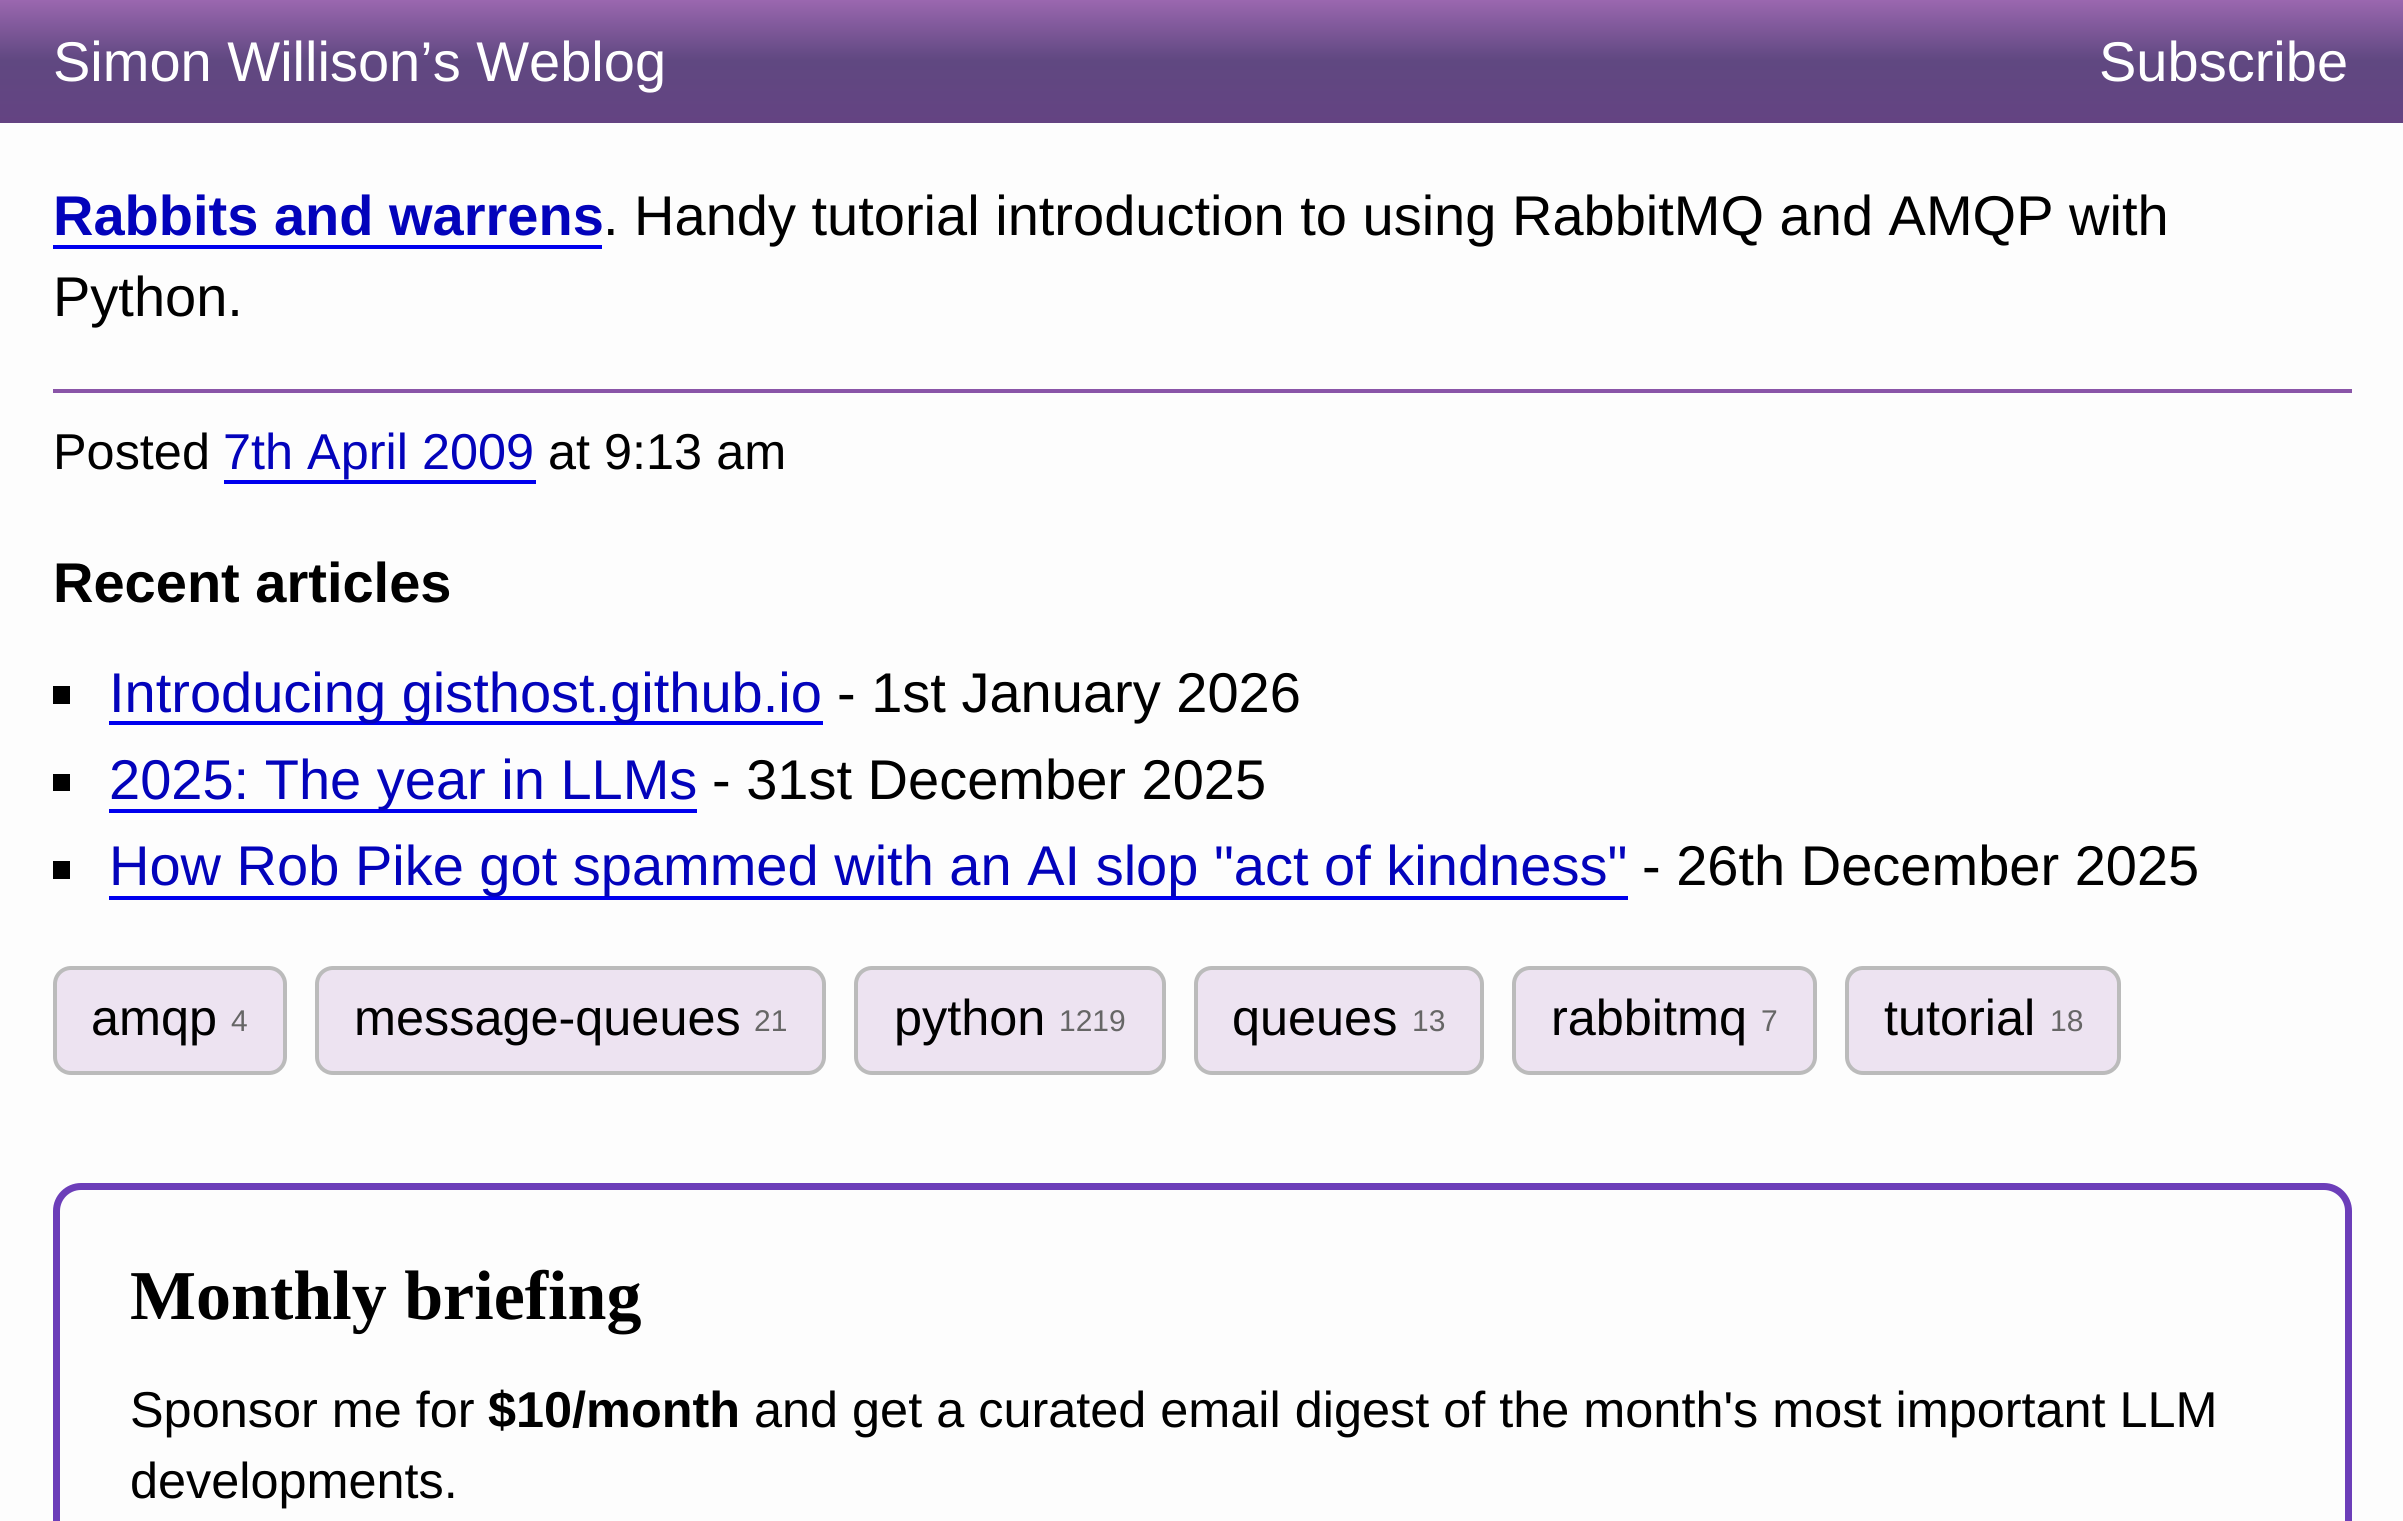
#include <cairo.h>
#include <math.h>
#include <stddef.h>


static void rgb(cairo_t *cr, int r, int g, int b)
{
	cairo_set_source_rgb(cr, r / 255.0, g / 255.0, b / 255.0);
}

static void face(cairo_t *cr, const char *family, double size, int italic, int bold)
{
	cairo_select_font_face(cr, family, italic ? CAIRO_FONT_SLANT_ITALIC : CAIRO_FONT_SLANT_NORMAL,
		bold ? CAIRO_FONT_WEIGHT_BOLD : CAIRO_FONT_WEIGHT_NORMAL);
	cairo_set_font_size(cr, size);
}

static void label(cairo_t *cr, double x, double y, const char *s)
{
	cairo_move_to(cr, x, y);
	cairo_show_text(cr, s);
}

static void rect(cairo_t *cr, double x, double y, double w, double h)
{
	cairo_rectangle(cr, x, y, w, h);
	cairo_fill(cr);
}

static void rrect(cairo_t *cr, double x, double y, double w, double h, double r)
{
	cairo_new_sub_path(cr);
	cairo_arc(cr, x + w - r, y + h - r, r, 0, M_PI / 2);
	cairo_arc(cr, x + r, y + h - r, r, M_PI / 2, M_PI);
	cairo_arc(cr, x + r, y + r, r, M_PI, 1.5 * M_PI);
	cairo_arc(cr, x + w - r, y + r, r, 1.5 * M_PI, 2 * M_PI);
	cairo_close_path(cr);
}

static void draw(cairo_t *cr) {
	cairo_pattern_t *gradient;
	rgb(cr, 253, 253, 253);
	cairo_paint(cr);
	gradient = cairo_pattern_create_linear(1202, 0, 1202, 123);
	cairo_pattern_add_color_stop_rgba(gradient, 0, 0.604, 0.404, 0.686, 1);
	cairo_pattern_add_color_stop_rgba(gradient, 0.49, 0.376, 0.282, 0.506, 1);
	cairo_pattern_add_color_stop_rgba(gradient, 1, 0.392, 0.263, 0.51, 1);
	cairo_set_source(cr, gradient);
	cairo_pattern_destroy(gradient);
	rect(cr, 0, 0, 2403, 123);
	face(cr, "Liberation Sans", 56, 0, 0);
	rgb(cr, 255, 255, 255);
	label(cr, 53, 81, "Simon Willison’s Weblog");
	label(cr, 2099, 81, "Subscribe");
	face(cr, "Liberation Sans", 56, 0, 1);
	rgb(cr, 3, 3, 187);
	label(cr, 53, 235, "Rabbits and warrens");
	rgb(cr, 0, 0, 238);
	rect(cr, 53, 245, 549, 4);
	face(cr, "Liberation Sans", 56, 0, 0);
	rgb(cr, 0, 0, 0);
	label(cr, 603, 235, ". Handy tutorial introduction to using RabbitMQ and AMQP with");
	label(cr, 53, 316, "Python.");
	rgb(cr, 138, 85, 168);
	rect(cr, 53, 389, 2299, 4);
	face(cr, "Liberation Sans", 50.4, 0, 0);
	rgb(cr, 0, 0, 0);
	label(cr, 53, 469, "Posted");
	rgb(cr, 3, 3, 187);
	label(cr, 223, 469, "7th April 2009");
	rgb(cr, 0, 0, 238);
	rect(cr, 224, 480, 312, 4);
	rgb(cr, 0, 0, 0);
	label(cr, 548, 469, "at 9:13 am");
	face(cr, "Liberation Sans", 56, 0, 1);
	label(cr, 53, 602, "Recent articles");
	rect(cr, 53, 686, 17, 18);
	rgb(cr, 0, 0, 238);
	rect(cr, 109, 721, 714, 4);
	face(cr, "Liberation Sans", 56, 0, 0);
	rgb(cr, 3, 3, 187);
	label(cr, 109, 712, "Introducing gisthost.github.io");
	rgb(cr, 0, 0, 0);
	label(cr, 837, 712, "- 1st January 2026");
	rect(cr, 53, 774, 17, 17);
	rgb(cr, 0, 0, 238);
	rect(cr, 109, 809, 588, 4);
	rgb(cr, 3, 3, 187);
	label(cr, 109, 799, "2025: The year in LLMs");
	rgb(cr, 0, 0, 0);
	label(cr, 712, 799, "- 31st December 2025");
	rect(cr, 53, 861, 17, 18);
	rgb(cr, 0, 0, 238);
	rect(cr, 109, 896, 1519, 4);
	rgb(cr, 3, 3, 187);
	label(cr, 109, 885, "How Rob Pike got spammed with an AI slop \"act of kindness\"");
	rgb(cr, 0, 0, 0);
	label(cr, 1642, 885, "- 26th December 2025");
	rgb(cr, 237, 227, 241);
	rrect(cr, 55, 968, 230, 105, 16);
	cairo_fill_preserve(cr);
	rgb(cr, 187, 187, 187);
	cairo_set_line_width(cr, 4);
	cairo_stroke(cr);
	face(cr, "Liberation Sans", 50.4, 0, 0);
	rgb(cr, 0, 0, 0);
	label(cr, 91, 1035, "amqp");
	face(cr, "Liberation Sans", 30, 0, 0);
	rgb(cr, 102, 102, 102);
	label(cr, 231, 1031, "4");
	rgb(cr, 237, 227, 241);
	rrect(cr, 317, 968, 507, 105, 16);
	cairo_fill_preserve(cr);
	rgb(cr, 187, 187, 187);
	cairo_stroke(cr);
	face(cr, "Liberation Sans", 50.4, 0, 0);
	rgb(cr, 0, 0, 0);
	label(cr, 354, 1035, "message-queues");
	face(cr, "Liberation Sans", 30, 0, 0);
	rgb(cr, 102, 102, 102);
	label(cr, 754, 1031, "21");
	rgb(cr, 237, 227, 241);
	rrect(cr, 856, 968, 308, 105, 16);
	cairo_fill_preserve(cr);
	rgb(cr, 187, 187, 187);
	cairo_stroke(cr);
	face(cr, "Liberation Sans", 50.4, 0, 0);
	rgb(cr, 0, 0, 0);
	label(cr, 894, 1035, "python");
	face(cr, "Liberation Sans", 30, 0, 0);
	rgb(cr, 102, 102, 102);
	label(cr, 1059, 1031, "1219");
	rgb(cr, 237, 227, 241);
	rrect(cr, 1196, 968, 286, 105, 16);
	cairo_fill_preserve(cr);
	rgb(cr, 187, 187, 187);
	cairo_stroke(cr);
	face(cr, "Liberation Sans", 50.4, 0, 0);
	rgb(cr, 0, 0, 0);
	label(cr, 1232, 1035, "queues");
	face(cr, "Liberation Sans", 30, 0, 0);
	rgb(cr, 102, 102, 102);
	label(cr, 1412, 1031, "13");
	rgb(cr, 237, 227, 241);
	rrect(cr, 1514, 968, 301, 105, 16);
	cairo_fill_preserve(cr);
	rgb(cr, 187, 187, 187);
	cairo_stroke(cr);
	face(cr, "Liberation Sans", 50.4, 0, 0);
	rgb(cr, 0, 0, 0);
	label(cr, 1551, 1035, "rabbitmq");
	face(cr, "Liberation Sans", 30, 0, 0);
	rgb(cr, 102, 102, 102);
	label(cr, 1761, 1031, "7");
	rgb(cr, 237, 227, 241);
	rrect(cr, 1847, 968, 272, 105, 16);
	cairo_fill_preserve(cr);
	rgb(cr, 187, 187, 187);
	cairo_stroke(cr);
	face(cr, "Liberation Sans", 50.4, 0, 0);
	rgb(cr, 0, 0, 0);
	label(cr, 1884, 1035, "tutorial");
	face(cr, "Liberation Sans", 30, 0, 0);
	rgb(cr, 102, 102, 102);
	label(cr, 2050, 1031, "18");
	rrect(cr, 56.5, 1186.5, 2292, 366, 24.5);
	rgb(cr, 108, 62, 185);
	cairo_set_line_width(cr, 7);
	cairo_stroke(cr);
	face(cr, "Liberation Serif", 70, 0, 1);
	rgb(cr, 0, 0, 0);
	label(cr, 130, 1319, "Monthly briefing");
	face(cr, "Liberation Sans", 50.4, 0, 0);
	label(cr, 130, 1427, "Sponsor me for");
	face(cr, "Liberation Sans", 50.4, 0, 1);
	label(cr, 488, 1427, "$10/month");
	face(cr, "Liberation Sans", 50.4, 0, 0);
	label(cr, 754, 1427, "and get a curated email digest of the month's most important LLM");
	label(cr, 130, 1498, "developments.");
}

int main(void) {
	cairo_surface_t *surface = cairo_image_surface_create(CAIRO_FORMAT_RGB24, 2403, 1521);
	cairo_t *cr = cairo_create(surface);
	cairo_font_options_t *options = cairo_font_options_create();
	cairo_font_options_set_hint_metrics(options, CAIRO_HINT_METRICS_OFF);
	cairo_font_options_set_hint_style(options, CAIRO_HINT_STYLE_NONE);
	cairo_set_font_options(cr, options);
	cairo_set_miter_limit(cr, 4);
	draw(cr);
	cairo_surface_write_to_png(surface, "render.png");
	cairo_font_options_destroy(options);
	cairo_destroy(cr);
	cairo_surface_destroy(surface);
	return 0;
}
